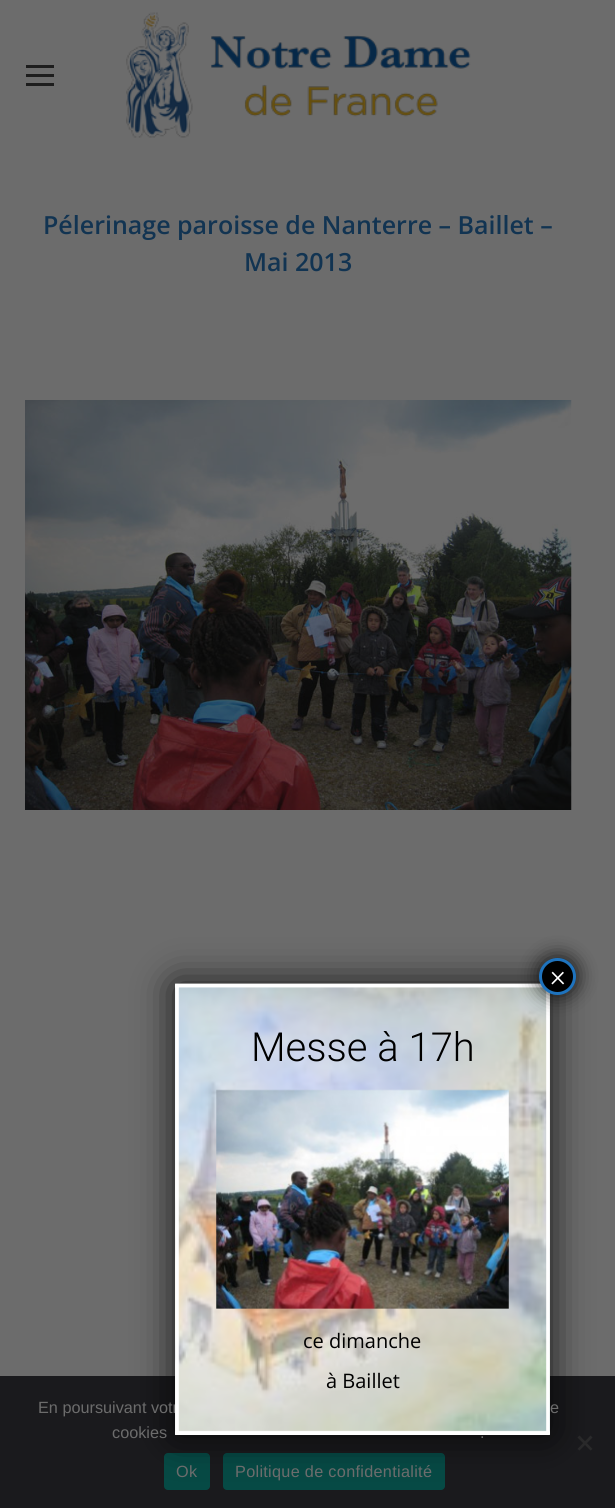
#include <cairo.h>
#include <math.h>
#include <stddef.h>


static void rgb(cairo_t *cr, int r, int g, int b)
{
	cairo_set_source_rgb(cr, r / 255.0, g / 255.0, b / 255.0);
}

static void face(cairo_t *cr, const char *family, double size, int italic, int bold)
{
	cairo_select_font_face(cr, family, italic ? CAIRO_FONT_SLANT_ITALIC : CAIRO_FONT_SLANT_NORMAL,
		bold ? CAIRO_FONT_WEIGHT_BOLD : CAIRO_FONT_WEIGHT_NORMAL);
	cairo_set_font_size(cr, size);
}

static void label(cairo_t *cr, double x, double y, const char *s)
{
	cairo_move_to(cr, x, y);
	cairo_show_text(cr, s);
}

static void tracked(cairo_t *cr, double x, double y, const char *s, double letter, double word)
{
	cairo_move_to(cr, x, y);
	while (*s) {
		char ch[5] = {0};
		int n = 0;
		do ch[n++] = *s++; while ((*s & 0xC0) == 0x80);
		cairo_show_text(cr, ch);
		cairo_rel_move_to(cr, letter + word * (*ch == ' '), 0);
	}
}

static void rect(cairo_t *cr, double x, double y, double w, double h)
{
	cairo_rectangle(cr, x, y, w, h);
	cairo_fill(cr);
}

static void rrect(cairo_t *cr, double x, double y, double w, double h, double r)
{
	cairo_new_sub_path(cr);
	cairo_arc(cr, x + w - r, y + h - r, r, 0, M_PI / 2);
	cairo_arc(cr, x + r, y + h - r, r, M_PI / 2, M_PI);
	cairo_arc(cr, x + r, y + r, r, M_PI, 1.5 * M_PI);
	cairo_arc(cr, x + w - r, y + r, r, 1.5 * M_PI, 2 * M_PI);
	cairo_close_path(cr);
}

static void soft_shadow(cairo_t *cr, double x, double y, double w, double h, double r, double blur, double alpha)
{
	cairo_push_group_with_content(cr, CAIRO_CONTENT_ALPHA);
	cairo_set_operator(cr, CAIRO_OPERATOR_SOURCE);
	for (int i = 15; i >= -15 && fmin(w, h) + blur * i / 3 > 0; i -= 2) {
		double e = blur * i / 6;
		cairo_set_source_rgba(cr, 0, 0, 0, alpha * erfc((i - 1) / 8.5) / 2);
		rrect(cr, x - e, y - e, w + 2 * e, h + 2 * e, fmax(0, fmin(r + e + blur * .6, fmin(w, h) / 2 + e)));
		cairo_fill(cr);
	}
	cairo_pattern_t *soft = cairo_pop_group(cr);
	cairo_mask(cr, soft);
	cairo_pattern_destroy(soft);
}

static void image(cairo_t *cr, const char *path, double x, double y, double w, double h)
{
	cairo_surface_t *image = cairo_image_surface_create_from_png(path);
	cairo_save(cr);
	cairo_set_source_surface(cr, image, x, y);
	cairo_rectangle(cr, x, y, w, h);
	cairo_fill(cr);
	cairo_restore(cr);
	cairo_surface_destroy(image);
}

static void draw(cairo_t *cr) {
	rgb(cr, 108, 108, 108);
	cairo_paint(cr);
	rgb(cr, 29, 29, 29);
	rect(cr, 26, 65, 28, 3);
	rect(cr, 26, 74, 28, 3);
	rect(cr, 26, 83, 28, 3);
	image(cr, "image0.png", 126, 12, 345, 126);
	face(cr, "Open Sans SemiBold", 25, 0, 0);
	rgb(cr, 18, 52, 82);
	label(cr, 43, 234, "Pélerinage paroisse de Nanterre – Baillet –");
	label(cr, 244, 271, "Mai 2013");
	image(cr, "image1.png", 25, 400, 547, 410);
	rgb(cr, 26, 26, 29);
	rect(cr, 0, 1376, 615, 132);
	rgb(cr, 42, 42, 43);
	cairo_new_path(cr);
	cairo_move_to(cr, 590.5, 1435.5);
	cairo_line_to(cr, 592.5, 1437.5);
	cairo_line_to(cr, 579.5, 1450.5);
	cairo_line_to(cr, 577.5, 1449);
	cairo_close_path(cr);
	cairo_fill(cr);
	cairo_new_path(cr);
	cairo_move_to(cr, 577.5, 1437.5);
	cairo_line_to(cr, 579.5, 1435.5);
	cairo_line_to(cr, 592.5, 1449);
	cairo_line_to(cr, 590.5, 1450.5);
	cairo_close_path(cr);
	cairo_fill(cr);
	rgb(cr, 6, 74, 69);
	rrect(cr, 164, 1453, 46, 37, 4);
	cairo_fill(cr);
	rrect(cr, 223, 1453, 222, 37, 4);
	cairo_fill(cr);
	rgb(cr, 2, 2, 2);
	soft_shadow(cr, 175, 984, 375, 451, 1, 19, 0.85);
	face(cr, "Liberation Sans", 16.25, 0, 0);
	rgb(cr, 108, 108, 108);
	label(cr, 38, 1413, "En poursuivant votr");
	rgb(cr, 255, 255, 255);
	rrect(cr, 175, 984, 375, 451, 1);
	cairo_fill(cr);
	image(cr, "image2.png", 175, 987, 375, 445);
	cairo_new_path(cr);
	cairo_move_to(cr, 177, 985.5);
	cairo_line_to(cr, 548, 985.5);
	cairo_line_to(cr, 548, 1433);
	cairo_line_to(cr, 177, 1433);
	cairo_close_path(cr);
	cairo_set_line_width(cr, 3.8);
	cairo_stroke(cr);
	cairo_set_source_rgba(cr, 1, 1, 1, 0.47);
	rect(cr, 179, 988, 367, 443);
	rgb(cr, 2, 2, 2);
	soft_shadow(cr, 538, 956, 40, 40, 20, 9.5, 0.75);
	rgb(cr, 0, 0, 0);
	cairo_arc(cr, 557.5, 976.5, 17, 0, 2 * M_PI);
	cairo_fill_preserve(cr);
	rgb(cr, 30, 115, 190);
	cairo_set_line_width(cr, 3);
	cairo_stroke(cr);
	face(cr, "Roboto Light", 30, 0, 0);
	rgb(cr, 255, 255, 255);
	label(cr, 550, 986, "×");
	face(cr, "Roboto Light", 40, 0, 0);
	rgb(cr, 0, 0, 0);
	label(cr, 251, 1061, "Messe à 17h");
	image(cr, "image3.png", 216, 1089, 293, 220);
	face(cr, "Open Sans", 20, 0, 0);
	label(cr, 303, 1348, "ce dimanche");
	label(cr, 326, 1388, "à Baillet");
	face(cr, "Liberation Sans", 16.25, 0, 0);
	rgb(cr, 108, 108, 108);
	label(cr, 550, 1413, "e");
	label(cr, 112, 1438, "cookies");
	label(cr, 480, 1438, ".");
	tracked(cr, 176, 1477, "Ok", 0.3, 0);
	tracked(cr, 235, 1477, "Politique de confidentialité", 0.3, 0);
}

int main(void) {
	cairo_surface_t *surface = cairo_image_surface_create(CAIRO_FORMAT_RGB24, 615, 1508);
	cairo_t *cr = cairo_create(surface);
	cairo_font_options_t *options = cairo_font_options_create();
	cairo_font_options_set_hint_metrics(options, CAIRO_HINT_METRICS_OFF);
	cairo_font_options_set_hint_style(options, CAIRO_HINT_STYLE_NONE);
	cairo_set_font_options(cr, options);
	cairo_set_miter_limit(cr, 4);
	draw(cr);
	cairo_surface_write_to_png(surface, "render.png");
	cairo_font_options_destroy(options);
	cairo_destroy(cr);
	cairo_surface_destroy(surface);
	return 0;
}
